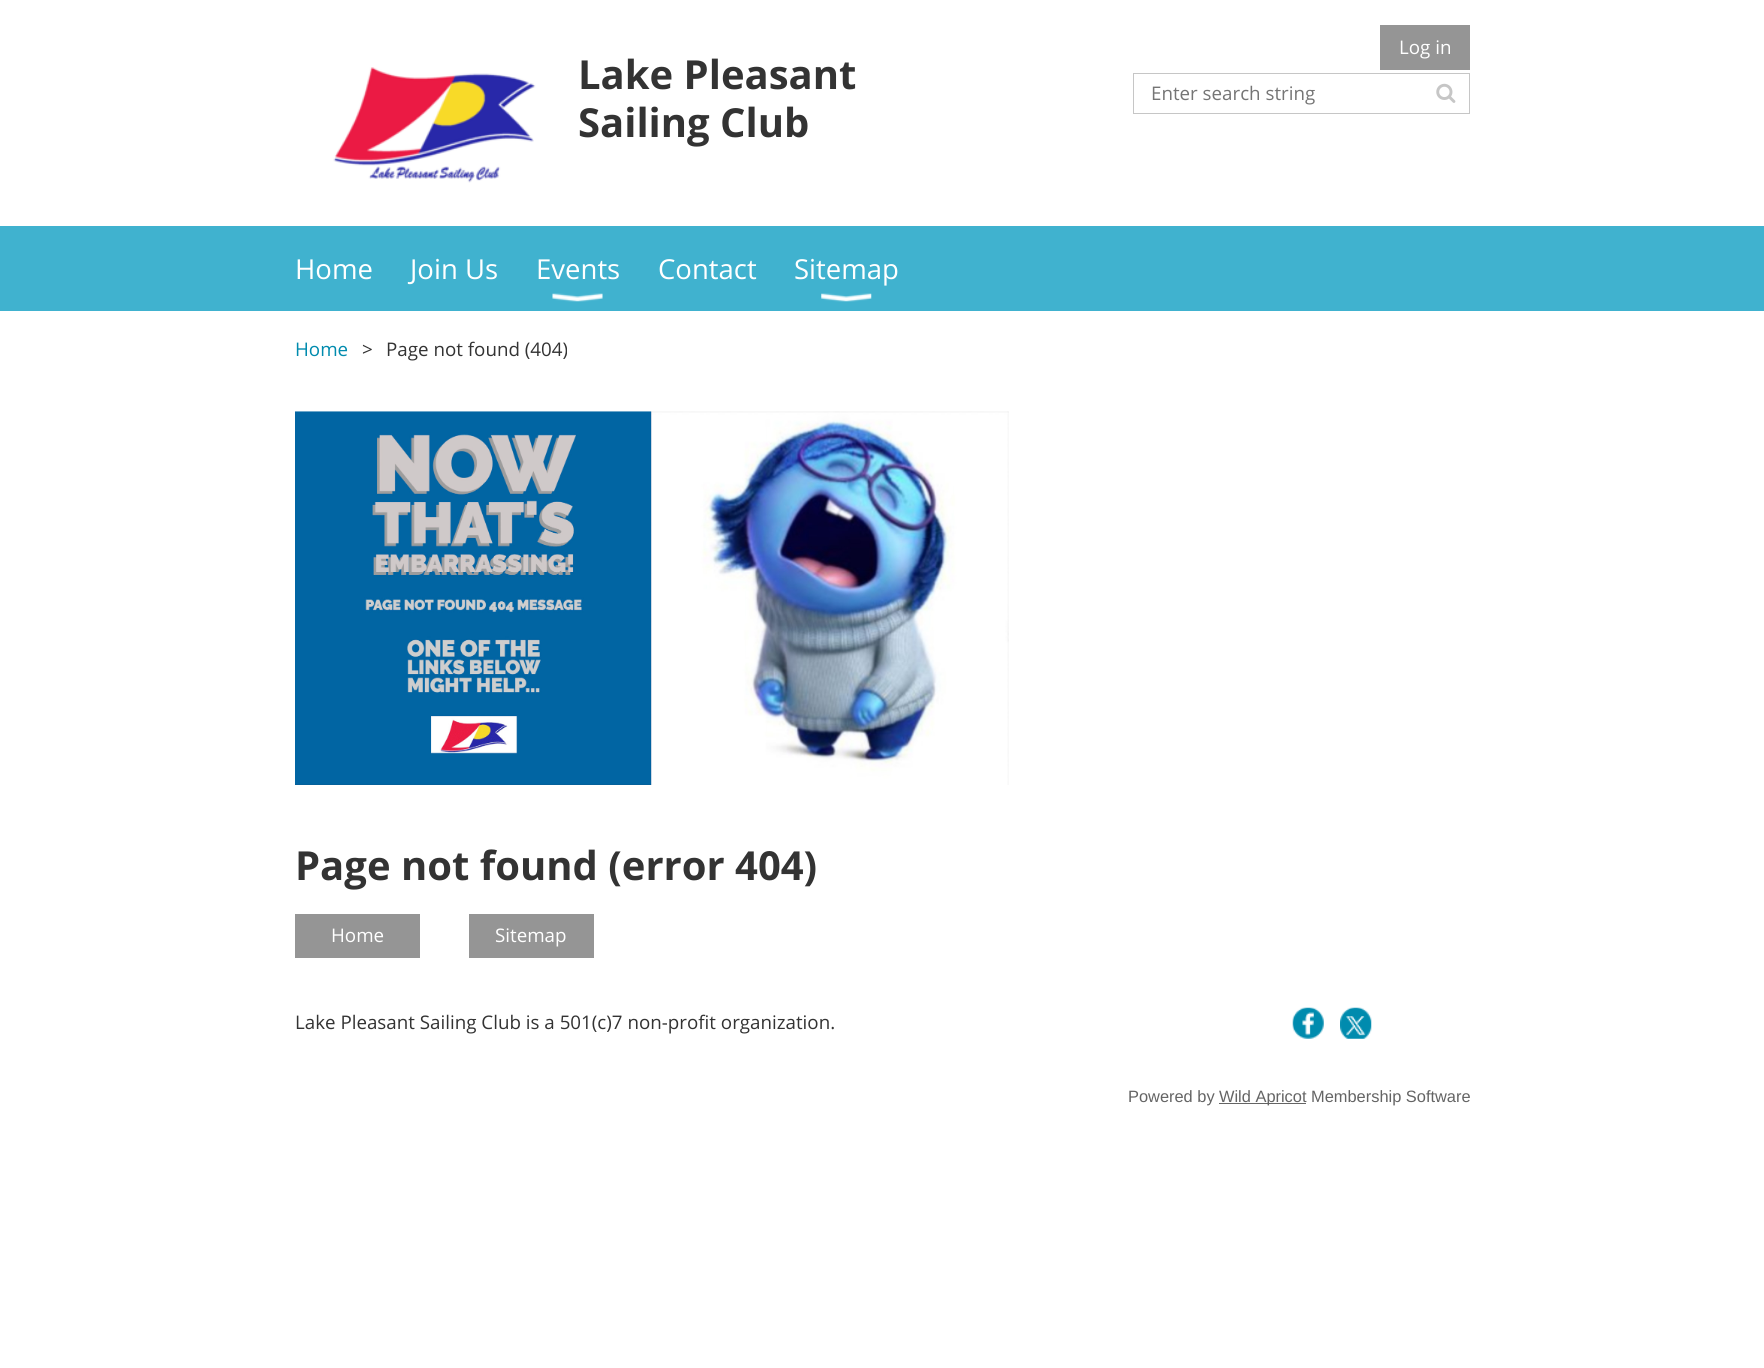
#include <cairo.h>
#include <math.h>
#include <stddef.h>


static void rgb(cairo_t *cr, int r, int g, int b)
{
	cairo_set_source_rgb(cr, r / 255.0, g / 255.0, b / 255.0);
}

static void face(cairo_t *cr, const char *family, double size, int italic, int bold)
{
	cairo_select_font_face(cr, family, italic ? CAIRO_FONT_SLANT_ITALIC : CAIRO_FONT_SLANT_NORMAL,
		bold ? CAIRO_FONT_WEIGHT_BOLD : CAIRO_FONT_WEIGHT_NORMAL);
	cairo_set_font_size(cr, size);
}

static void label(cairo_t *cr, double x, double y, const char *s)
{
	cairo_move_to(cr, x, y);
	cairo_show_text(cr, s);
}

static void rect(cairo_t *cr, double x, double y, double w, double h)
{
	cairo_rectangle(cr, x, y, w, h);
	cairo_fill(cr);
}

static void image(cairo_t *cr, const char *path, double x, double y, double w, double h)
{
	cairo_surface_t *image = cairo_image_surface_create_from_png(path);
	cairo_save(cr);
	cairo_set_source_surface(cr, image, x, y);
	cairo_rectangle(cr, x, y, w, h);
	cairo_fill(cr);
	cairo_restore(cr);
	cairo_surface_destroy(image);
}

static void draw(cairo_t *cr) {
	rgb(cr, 255, 255, 255);
	cairo_paint(cr);
	image(cr, "image0.png", 333, 67, 203, 116);
	face(cr, "Open Sans", 40, 0, 1);
	rgb(cr, 51, 51, 51);
	label(cr, 578, 89, "Lake Pleasant");
	label(cr, 578, 137, "Sailing Club");
	rgb(cr, 149, 149, 149);
	rect(cr, 1380, 25, 90, 45);
	face(cr, "Open Sans", 18.75, 0, 0);
	rgb(cr, 255, 255, 255);
	label(cr, 1399, 54, "Log in");
	cairo_rectangle(cr, 1133.5, 73.5, 336, 40);
	rgb(cr, 198, 198, 198);
	cairo_set_line_width(cr, 1);
	cairo_stroke(cr);
	rgb(cr, 117, 117, 117);
	label(cr, 1151, 100, "Enter search string");
	image(cr, "image1.png", 1436, 83, 20, 20);
	rgb(cr, 64, 178, 207);
	rect(cr, 0, 226, 1764, 85);
	face(cr, "Open Sans", 27.5, 0, 0);
	rgb(cr, 255, 255, 255);
	label(cr, 295, 279, "Home");
	label(cr, 410, 279, "Join Us");
	label(cr, 536, 279, "Events");
	image(cr, "image2.png", 552, 293, 51, 9);
	label(cr, 658, 279, "Contact");
	label(cr, 794, 279, "Sitemap");
	image(cr, "image3.png", 821, 293, 51, 9);
	face(cr, "Open Sans", 18.75, 0, 0);
	rgb(cr, 0, 139, 174);
	label(cr, 295, 356, "Home");
	rgb(cr, 51, 51, 51);
	label(cr, 362, 356, ">");
	label(cr, 386, 356, "Page not found (404)");
	image(cr, "image4.png", 295, 411, 714, 374);
	face(cr, "Open Sans", 40, 0, 1);
	label(cr, 295, 880, "Page not found (error 404)");
	rgb(cr, 149, 149, 149);
	rect(cr, 295, 914, 125, 44);
	face(cr, "Open Sans", 18.75, 0, 0);
	rgb(cr, 255, 255, 255);
	label(cr, 331, 942, "Home");
	rgb(cr, 149, 149, 149);
	rect(cr, 469, 914, 125, 44);
	rgb(cr, 255, 255, 255);
	label(cr, 495, 942, "Sitemap");
	rgb(cr, 51, 51, 51);
	label(cr, 295, 1029, "Lake Pleasant Sailing Club is a 501(c)7 non-profit organization.");
	image(cr, "image5.png", 1292, 1007, 32, 32);
	image(cr, "image6.png", 1340, 1007, 32, 32);
	face(cr, "Liberation Sans", 16.4, 0, 0);
	rgb(cr, 100, 100, 100);
	label(cr, 1128, 1102, "Powered by");
	rect(cr, 1219, 1103, 87, 1);
	label(cr, 1219, 1102, "Wild Apricot Membership Software");
}

int main(void) {
	cairo_surface_t *surface = cairo_image_surface_create(CAIRO_FORMAT_RGB24, 1764, 1368);
	cairo_t *cr = cairo_create(surface);
	cairo_font_options_t *options = cairo_font_options_create();
	cairo_font_options_set_hint_metrics(options, CAIRO_HINT_METRICS_OFF);
	cairo_font_options_set_hint_style(options, CAIRO_HINT_STYLE_NONE);
	cairo_set_font_options(cr, options);
	cairo_set_miter_limit(cr, 4);
	draw(cr);
	cairo_surface_write_to_png(surface, "render.png");
	cairo_font_options_destroy(options);
	cairo_destroy(cr);
	cairo_surface_destroy(surface);
	return 0;
}
